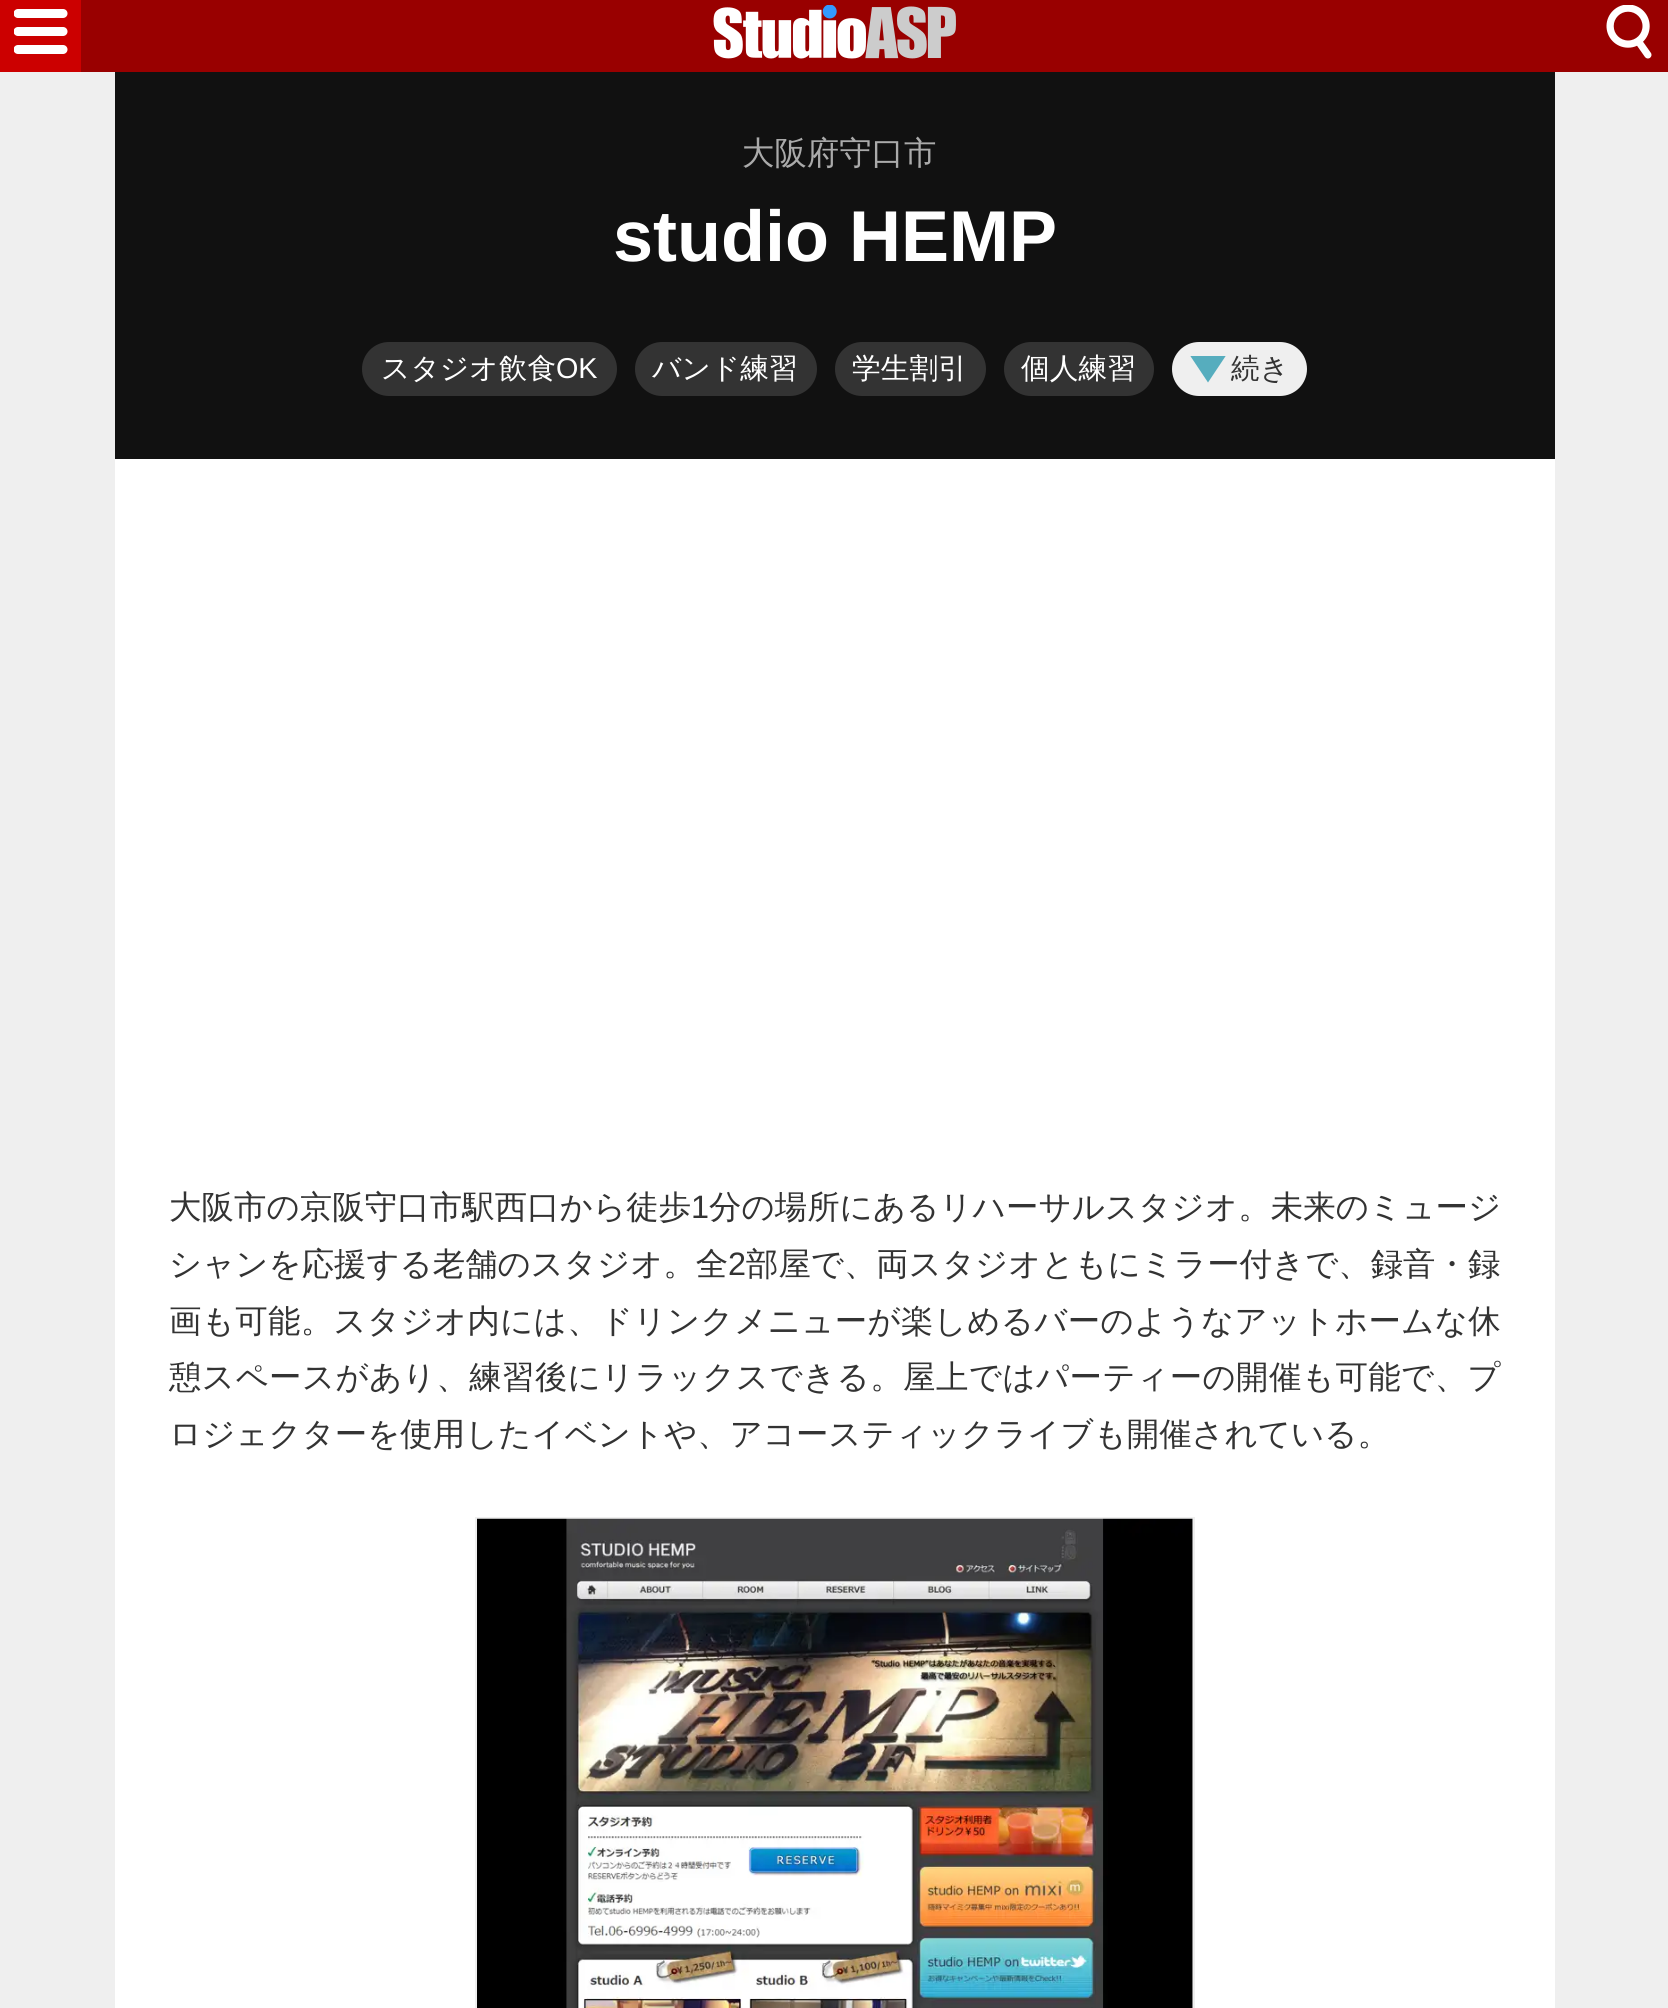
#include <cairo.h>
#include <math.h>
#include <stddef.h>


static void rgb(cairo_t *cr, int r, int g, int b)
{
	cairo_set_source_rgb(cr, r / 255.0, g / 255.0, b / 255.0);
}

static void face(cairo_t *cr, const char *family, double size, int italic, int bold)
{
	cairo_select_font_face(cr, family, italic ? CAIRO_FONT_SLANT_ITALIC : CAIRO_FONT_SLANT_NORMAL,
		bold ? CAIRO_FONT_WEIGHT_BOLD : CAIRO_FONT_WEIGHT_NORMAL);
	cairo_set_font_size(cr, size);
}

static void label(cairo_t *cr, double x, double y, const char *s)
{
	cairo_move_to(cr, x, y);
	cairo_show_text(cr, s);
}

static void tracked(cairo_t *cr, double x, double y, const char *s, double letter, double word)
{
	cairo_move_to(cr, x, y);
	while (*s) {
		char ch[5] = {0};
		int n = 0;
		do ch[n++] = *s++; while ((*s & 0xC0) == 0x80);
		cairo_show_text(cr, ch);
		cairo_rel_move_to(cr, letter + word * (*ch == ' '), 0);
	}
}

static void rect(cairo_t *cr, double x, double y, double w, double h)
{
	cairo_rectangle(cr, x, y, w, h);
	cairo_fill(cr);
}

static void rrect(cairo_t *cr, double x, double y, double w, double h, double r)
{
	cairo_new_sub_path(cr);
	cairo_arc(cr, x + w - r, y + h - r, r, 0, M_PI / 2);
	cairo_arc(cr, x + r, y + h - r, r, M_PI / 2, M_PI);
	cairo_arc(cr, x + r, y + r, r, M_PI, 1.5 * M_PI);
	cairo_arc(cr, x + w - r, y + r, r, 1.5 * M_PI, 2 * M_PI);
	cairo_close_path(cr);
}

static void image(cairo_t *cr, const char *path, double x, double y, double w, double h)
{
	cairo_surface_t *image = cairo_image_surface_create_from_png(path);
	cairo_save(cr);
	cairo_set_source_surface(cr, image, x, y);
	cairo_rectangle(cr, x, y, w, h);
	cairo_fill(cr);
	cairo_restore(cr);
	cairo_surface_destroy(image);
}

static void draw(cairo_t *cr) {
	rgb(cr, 239, 239, 239);
	cairo_paint(cr);
	rgb(cr, 153, 0, 0);
	rect(cr, 81, 0, 1587, 72);
	rgb(cr, 204, 0, 0);
	rect(cr, 0, 0, 81, 72);
	image(cr, "image0.png", 14, 9, 54, 45);
	image(cr, "image1.png", 713, 5, 243, 54);
	image(cr, "image2.png", 1606, 5, 46, 54);
	rgb(cr, 255, 255, 255);
	rect(cr, 115, 459, 1440, 1549);
	rgb(cr, 17, 17, 17);
	rect(cr, 115, 72, 1440, 387);
	face(cr, "WenQuanYi Zen Hei Medium", 32.4, 0, 0);
	rgb(cr, 170, 170, 170);
	label(cr, 742, 164, "大阪府守口市");
	face(cr, "Liberation Sans", 72, 0, 1);
	rgb(cr, 255, 255, 255);
	label(cr, 613, 261, "studio HEMP");
	rgb(cr, 51, 51, 51);
	rrect(cr, 362, 342, 255, 54, 27);
	cairo_fill(cr);
	face(cr, "WenQuanYi Zen Hei Medium", 28.75, 0, 0);
	rgb(cr, 255, 255, 255);
	label(cr, 381, 378, "スタジオ飲食");
	face(cr, "Liberation Sans", 28.75, 0, 0);
	label(cr, 556, 378, "OK");
	rgb(cr, 51, 51, 51);
	rrect(cr, 635, 342, 182, 54, 27);
	cairo_fill(cr);
	face(cr, "WenQuanYi Zen Hei Medium", 28.75, 0, 0);
	rgb(cr, 255, 255, 255);
	label(cr, 652, 378, "バンド練習");
	rgb(cr, 51, 51, 51);
	rrect(cr, 835, 342, 151, 54, 27);
	cairo_fill(cr);
	rgb(cr, 255, 255, 255);
	label(cr, 852, 378, "学生割引");
	rgb(cr, 51, 51, 51);
	rrect(cr, 1004, 342, 150, 54, 27);
	cairo_fill(cr);
	rgb(cr, 255, 255, 255);
	label(cr, 1021, 378, "個人練習");
	rgb(cr, 239, 239, 239);
	rrect(cr, 1172, 342, 135, 54, 27);
	cairo_fill(cr);
	cairo_save(cr);
	cairo_rectangle(cr, 1190, 356, 36, 27);
	cairo_clip(cr);
	rgb(cr, 86, 173, 190);
	cairo_new_path(cr);
	cairo_move_to(cr, 1208, 382.5);
	cairo_line_to(cr, 1226, 355.5);
	cairo_line_to(cr, 1190, 355.5);
	cairo_close_path(cr);
	cairo_fill(cr);
	cairo_restore(cr);
	rgb(cr, 51, 51, 51);
	label(cr, 1231, 378, "続き");
	face(cr, "WenQuanYi Zen Hei Medium", 32.4, 0, 0);
	tracked(cr, 169, 1218, "大阪市の京阪守口市駅西口から徒歩", 0.1, 0);
	face(cr, "Liberation Sans", 32.4, 0, 0);
	tracked(cr, 691, 1218, "1", 0.1, 0);
	face(cr, "WenQuanYi Zen Hei Medium", 32.4, 0, 0);
	tracked(cr, 709, 1218, "分の場所にあるリハーサルスタジオ。未来のミュージ", 0.1, 0);
	label(cr, 169, 1275, "シャンを応援する老舗のスタジオ。全");
	face(cr, "Liberation Sans", 32.4, 0, 0);
	label(cr, 728, 1275, "2");
	face(cr, "WenQuanYi Zen Hei Medium", 32.4, 0, 0);
	label(cr, 746, 1275, "部屋で、両スタジオともにミラー付きで、録音・録");
	tracked(cr, 169, 1332, "画も可能。スタジオ内には、ドリンクメニューが楽しめるバーのようなアットホームな休", 0.35, 0);
	tracked(cr, 169, 1388, "憩スペースがあり、練習後にリラックスできる。屋上ではパーティーの開催も可能で、プ", 0.45, 0);
	label(cr, 169, 1445, "ロジェクターを使用したイベントや、アコースティックライブも開催されている。");
	cairo_rectangle(cr, 476, 1518, 718, 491);
	rgb(cr, 239, 239, 239);
	cairo_stroke(cr);
	image(cr, "image3.png", 477, 1518, 716, 490);
}

int main(void) {
	cairo_surface_t *surface = cairo_image_surface_create(CAIRO_FORMAT_RGB24, 1668, 2008);
	cairo_t *cr = cairo_create(surface);
	cairo_font_options_t *options = cairo_font_options_create();
	cairo_font_options_set_hint_metrics(options, CAIRO_HINT_METRICS_OFF);
	cairo_font_options_set_hint_style(options, CAIRO_HINT_STYLE_NONE);
	cairo_set_font_options(cr, options);
	cairo_set_miter_limit(cr, 4);
	draw(cr);
	cairo_surface_write_to_png(surface, "render.png");
	cairo_font_options_destroy(options);
	cairo_destroy(cr);
	cairo_surface_destroy(surface);
	return 0;
}
